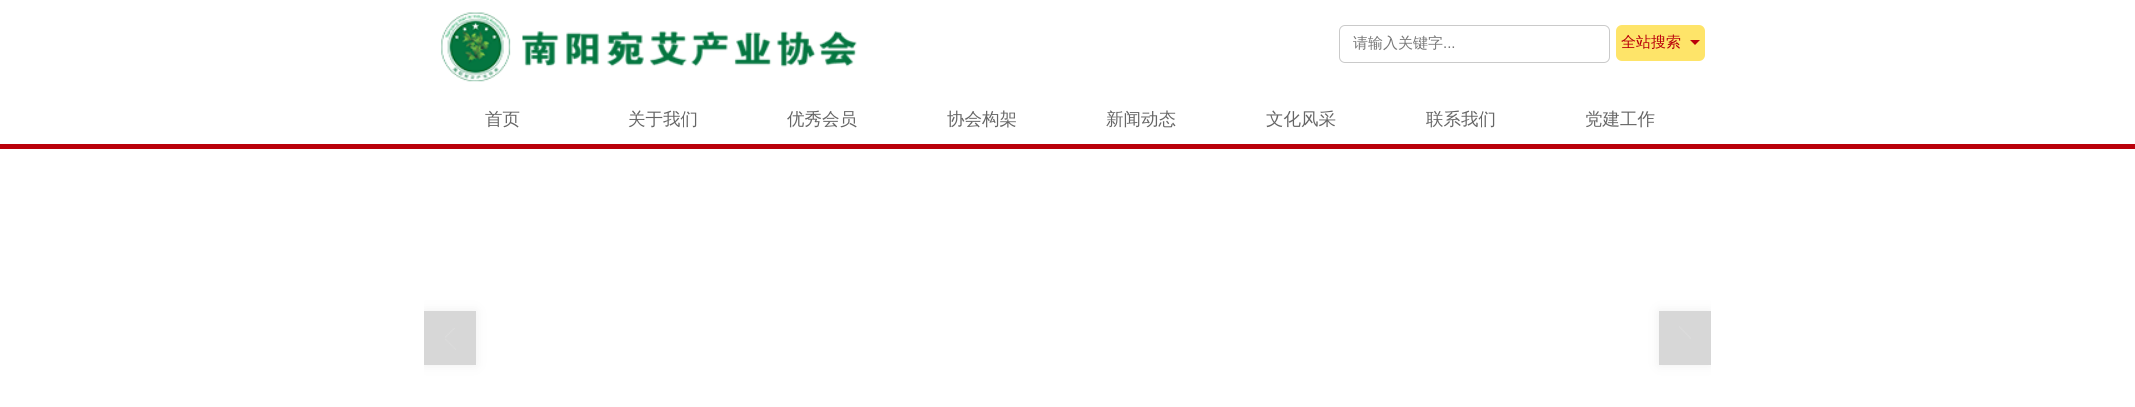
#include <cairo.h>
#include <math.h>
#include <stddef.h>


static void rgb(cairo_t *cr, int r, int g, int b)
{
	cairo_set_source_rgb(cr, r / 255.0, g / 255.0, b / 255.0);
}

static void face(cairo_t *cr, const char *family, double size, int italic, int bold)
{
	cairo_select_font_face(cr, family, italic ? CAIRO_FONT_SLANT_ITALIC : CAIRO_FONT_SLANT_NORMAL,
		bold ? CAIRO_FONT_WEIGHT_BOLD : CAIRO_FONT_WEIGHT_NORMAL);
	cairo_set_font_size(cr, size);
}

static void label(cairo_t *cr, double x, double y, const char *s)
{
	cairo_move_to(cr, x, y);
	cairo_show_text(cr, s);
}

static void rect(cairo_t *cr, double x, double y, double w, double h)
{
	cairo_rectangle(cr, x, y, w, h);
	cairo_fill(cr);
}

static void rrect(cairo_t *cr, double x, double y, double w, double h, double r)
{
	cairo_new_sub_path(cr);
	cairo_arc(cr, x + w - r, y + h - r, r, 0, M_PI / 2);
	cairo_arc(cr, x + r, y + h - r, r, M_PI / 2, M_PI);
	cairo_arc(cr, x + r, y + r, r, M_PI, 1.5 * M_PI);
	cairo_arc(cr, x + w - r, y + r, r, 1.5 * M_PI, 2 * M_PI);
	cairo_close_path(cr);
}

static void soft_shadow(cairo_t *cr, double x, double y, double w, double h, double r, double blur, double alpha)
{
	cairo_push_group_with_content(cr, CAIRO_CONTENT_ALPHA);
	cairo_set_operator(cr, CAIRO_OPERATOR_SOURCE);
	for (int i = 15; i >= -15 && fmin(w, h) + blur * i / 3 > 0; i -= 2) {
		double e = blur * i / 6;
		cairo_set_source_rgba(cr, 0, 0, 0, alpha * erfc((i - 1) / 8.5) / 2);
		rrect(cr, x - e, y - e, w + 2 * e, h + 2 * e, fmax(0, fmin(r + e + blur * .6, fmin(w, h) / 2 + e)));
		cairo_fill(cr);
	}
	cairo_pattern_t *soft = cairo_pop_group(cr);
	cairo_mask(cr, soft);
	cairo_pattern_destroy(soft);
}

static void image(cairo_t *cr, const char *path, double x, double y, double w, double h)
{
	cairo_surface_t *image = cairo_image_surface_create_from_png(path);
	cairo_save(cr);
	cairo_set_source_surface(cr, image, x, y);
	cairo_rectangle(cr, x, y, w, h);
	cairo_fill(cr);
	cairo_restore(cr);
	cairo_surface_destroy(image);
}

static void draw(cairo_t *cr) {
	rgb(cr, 255, 255, 255);
	cairo_paint(cr);
	rgb(cr, 186, 0, 10);
	rect(cr, 0, 144, 2135, 5);
	image(cr, "image0.png", 441, 12, 416, 70);
	rrect(cr, 1339.5, 25.5, 270, 37, 5.5);
	rgb(cr, 202, 202, 202);
	cairo_set_line_width(cr, 1);
	cairo_stroke(cr);
	face(cr, "WenQuanYi Zen Hei Medium", 15, 0, 0);
	rgb(cr, 119, 119, 119);
	label(cr, 1353, 48, "请输入关键字");
	face(cr, "Liberation Sans", 15, 0, 0);
	label(cr, 1443, 48, "...");
	rgb(cr, 254, 228, 105);
	rrect(cr, 1616, 25, 89, 36, 6);
	cairo_fill(cr);
	face(cr, "WenQuanYi Zen Hei Medium", 15, 0, 0);
	rgb(cr, 186, 0, 10);
	label(cr, 1621, 47, "全站搜索");
	cairo_new_path(cr);
	cairo_move_to(cr, 1690, 40);
	cairo_line_to(cr, 1700, 40);
	cairo_line_to(cr, 1695, 45);
	cairo_close_path(cr);
	cairo_fill(cr);
	face(cr, "WenQuanYi Zen Hei Medium", 17.5, 0, 0);
	rgb(cr, 102, 102, 102);
	label(cr, 485, 125, "首页");
	label(cr, 628, 125, "关于我们");
	label(cr, 787, 125, "优秀会员");
	label(cr, 947, 125, "协会构架");
	label(cr, 1106, 125, "新闻动态");
	label(cr, 1266, 125, "文化风采");
	label(cr, 1426, 125, "联系我们");
	label(cr, 1585, 125, "党建工作");
	cairo_save(cr);
	cairo_rectangle(cr, 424, 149, 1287, 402);
	cairo_clip(cr);
	rgb(cr, 204, 204, 204);
	soft_shadow(cr, 424, 311, 52, 54, 0, 6, 0.3);
	cairo_restore(cr);
	rgb(cr, 215, 215, 215);
	rect(cr, 424, 311, 52, 54);
	image(cr, "image1.png", 445, 328, 11, 22);
	cairo_save(cr);
	cairo_rectangle(cr, 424, 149, 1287, 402);
	cairo_clip(cr);
	rgb(cr, 204, 204, 204);
	soft_shadow(cr, 1659, 311, 52, 54, 0, 6, 0.3);
	cairo_restore(cr);
	rect(cr, 1659, 311, 52, 54);
	image(cr, "image2.png", 1679, 326, 12, 13);
}

int main(void) {
	cairo_surface_t *surface = cairo_image_surface_create(CAIRO_FORMAT_RGB24, 2135, 407);
	cairo_t *cr = cairo_create(surface);
	cairo_font_options_t *options = cairo_font_options_create();
	cairo_font_options_set_hint_metrics(options, CAIRO_HINT_METRICS_OFF);
	cairo_font_options_set_hint_style(options, CAIRO_HINT_STYLE_NONE);
	cairo_set_font_options(cr, options);
	cairo_set_miter_limit(cr, 4);
	draw(cr);
	cairo_surface_write_to_png(surface, "render.png");
	cairo_font_options_destroy(options);
	cairo_destroy(cr);
	cairo_surface_destroy(surface);
	return 0;
}
